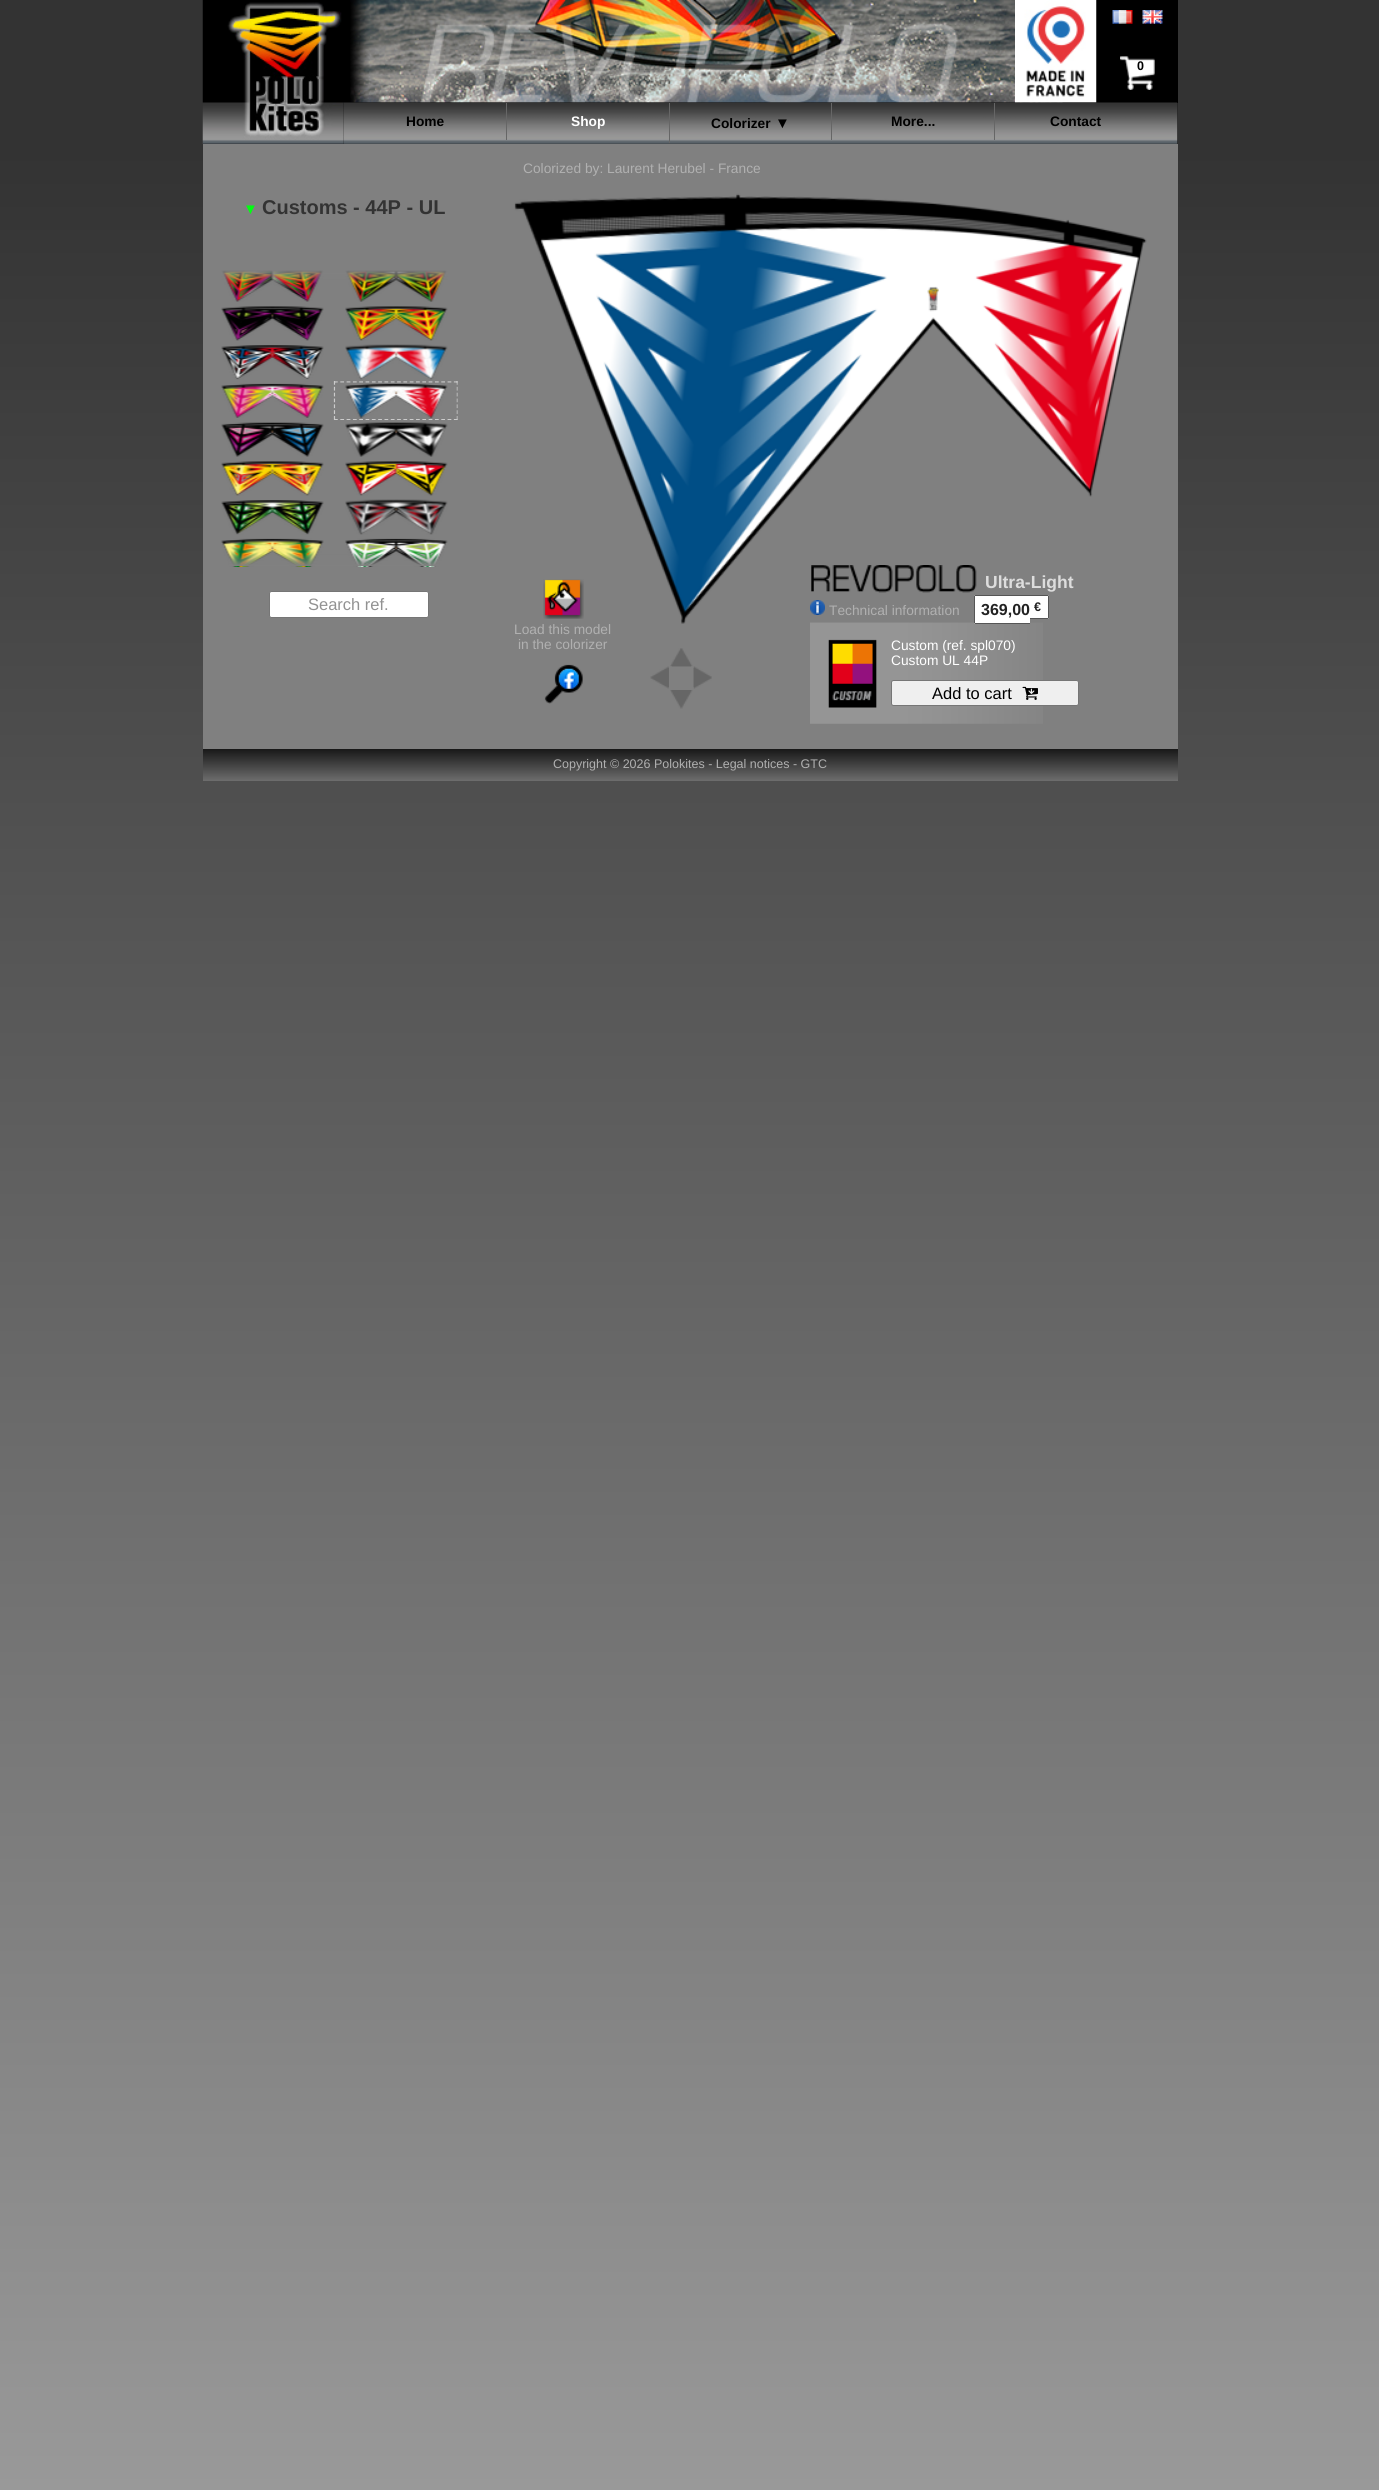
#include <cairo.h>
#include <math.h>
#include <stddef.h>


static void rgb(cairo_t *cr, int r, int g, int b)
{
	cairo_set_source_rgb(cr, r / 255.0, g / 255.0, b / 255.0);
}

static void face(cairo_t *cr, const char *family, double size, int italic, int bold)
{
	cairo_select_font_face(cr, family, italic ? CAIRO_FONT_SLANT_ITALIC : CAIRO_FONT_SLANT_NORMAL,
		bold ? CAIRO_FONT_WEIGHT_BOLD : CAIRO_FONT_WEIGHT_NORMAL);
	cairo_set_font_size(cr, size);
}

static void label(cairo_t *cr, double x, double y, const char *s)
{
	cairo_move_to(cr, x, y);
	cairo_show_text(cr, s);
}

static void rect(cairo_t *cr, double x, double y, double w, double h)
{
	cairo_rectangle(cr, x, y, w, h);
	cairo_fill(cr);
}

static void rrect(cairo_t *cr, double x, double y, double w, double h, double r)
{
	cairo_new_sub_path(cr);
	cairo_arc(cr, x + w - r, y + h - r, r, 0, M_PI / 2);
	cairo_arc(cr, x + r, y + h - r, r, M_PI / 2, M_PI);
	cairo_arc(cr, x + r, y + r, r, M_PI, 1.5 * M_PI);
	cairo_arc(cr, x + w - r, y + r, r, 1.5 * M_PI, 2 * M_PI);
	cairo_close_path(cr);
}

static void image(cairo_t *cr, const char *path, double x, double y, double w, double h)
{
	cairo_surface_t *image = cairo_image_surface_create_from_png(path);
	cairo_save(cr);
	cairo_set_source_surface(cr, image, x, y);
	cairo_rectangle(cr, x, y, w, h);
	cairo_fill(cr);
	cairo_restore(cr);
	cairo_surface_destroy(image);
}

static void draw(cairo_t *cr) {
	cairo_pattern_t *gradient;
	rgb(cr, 255, 255, 255);
	cairo_paint(cr);
	gradient = cairo_pattern_create_linear(690, 0, 690, 2490);
	cairo_pattern_add_color_stop_rgba(gradient, 0.06, 0.2, 0.2, 0.2, 1);
	cairo_pattern_add_color_stop_rgba(gradient, 1, 0.6, 0.6, 0.6, 1);
	cairo_set_source(cr, gradient);
	cairo_pattern_destroy(gradient);
	rect(cr, 0, 0, 1379, 2490);
	rgb(cr, 0, 0, 0);
	rect(cr, 203, 0, 975, 144);
	image(cr, "image0.png", 202, 0, 142, 144);
	image(cr, "image1.png", 350, 0, 713, 103);
	image(cr, "image2.png", 1015, 0, 82, 103);
	image(cr, "image3.png", 1112, 10, 21, 14);
	image(cr, "image4.png", 1142, 10, 21, 14);
	image(cr, "image5.png", 1120, 56, 35, 34);
	face(cr, "Liberation Sans", 12.5, 0, 1);
	label(cr, 1137, 70, "0");
	rgb(cr, 34, 34, 34);
	rect(cr, 344, 103, 834, 41);
	image(cr, "image6.png", 343, 102, 835, 42);
	face(cr, "Liberation Sans", 13.75, 0, 1);
	rgb(cr, 0, 0, 0);
	label(cr, 406, 126, "Home");
	rgb(cr, 102, 102, 102);
	rect(cr, 506, 103, 1, 37);
	rgb(cr, 255, 255, 255);
	label(cr, 571, 126, "Shop");
	rgb(cr, 102, 102, 102);
	rect(cr, 669, 103, 1, 40);
	rgb(cr, 0, 0, 0);
	label(cr, 711, 128, "Colorizer");
	face(cr, "Liberation Sans", 15, 0, 1);
	label(cr, 775, 128, "▼");
	rgb(cr, 102, 102, 102);
	rect(cr, 831, 103, 1, 37);
	face(cr, "Liberation Sans", 13.75, 0, 1);
	rgb(cr, 0, 0, 0);
	label(cr, 891, 126, "More...");
	rgb(cr, 102, 102, 102);
	rect(cr, 994, 103, 1, 37);
	rgb(cr, 0, 0, 0);
	label(cr, 1050, 126, "Contact");
	rgb(cr, 128, 128, 128);
	rect(cr, 203, 144, 975, 605);
	face(cr, "Liberation Sans", 15, 0, 1);
	rgb(cr, 0, 255, 17);
	label(cr, 243, 214, "▼");
	face(cr, "Liberation Sans", 20, 0, 1);
	rgb(cr, 51, 51, 51);
	label(cr, 262, 214, "Customs - 44P - UL");
	image(cr, "image7.png", 221, 270, 103, 32);
	image(cr, "image8.png", 345, 270, 103, 32);
	image(cr, "image9.png", 221, 306, 103, 35);
	image(cr, "image10.png", 345, 306, 103, 35);
	image(cr, "image11.png", 221, 345, 103, 35);
	image(cr, "image12.png", 345, 344, 103, 36);
	image(cr, "image13.png", 221, 383, 103, 35);
	cairo_new_path(cr);
	cairo_move_to(cr, 334, 382);
	cairo_line_to(cr, 457.5, 382);
	rgb(cr, 204, 204, 204);
	cairo_set_line_width(cr, 1.2);
	cairo_set_dash(cr, (double[]){3.75, 2.56}, 2, 0);
	cairo_stroke(cr);
	cairo_new_path(cr);
	cairo_move_to(cr, 457, 381);
	cairo_line_to(cr, 457, 420);
	cairo_set_dash(cr, (double[]){3.75, 2.09}, 2, 0);
	cairo_stroke(cr);
	cairo_new_path(cr);
	cairo_move_to(cr, 334, 419.5);
	cairo_line_to(cr, 457.5, 419.5);
	cairo_set_dash(cr, (double[]){3.75, 2.56}, 2, 0);
	cairo_stroke(cr);
	cairo_new_path(cr);
	cairo_move_to(cr, 334.5, 381);
	cairo_line_to(cr, 334.5, 420);
	cairo_set_dash(cr, (double[]){3.75, 2.09}, 2, 0);
	cairo_stroke(cr);
	image(cr, "image14.png", 335, 382, 123, 37);
	image(cr, "image15.png", 221, 422, 103, 35);
	rgb(cr, 128, 128, 128);
	rect(cr, 334, 420, 124, 1);
	image(cr, "image16.png", 345, 422, 103, 35);
	image(cr, "image17.png", 221, 461, 103, 35);
	image(cr, "image18.png", 345, 461, 103, 35);
	image(cr, "image19.png", 221, 500, 103, 35);
	image(cr, "image20.png", 345, 499, 103, 36);
	image(cr, "image21.png", 221, 538, 103, 29);
	image(cr, "image22.png", 345, 538, 103, 29);
	gradient = cairo_pattern_create_linear(329, 283, 329, 270);
	cairo_pattern_add_color_stop_rgba(gradient, 0, 0.502, 0.502, 0.502, 0);
	cairo_pattern_add_color_stop_rgba(gradient, 1, 0.502, 0.502, 0.502, 1);
	cairo_set_source(cr, gradient);
	cairo_pattern_destroy(gradient);
	rect(cr, 221, 270, 227, 13);
	gradient = cairo_pattern_create_linear(329, 554, 329, 566);
	cairo_pattern_add_color_stop_rgba(gradient, 0, 0.502, 0.502, 0.502, 0);
	cairo_pattern_add_color_stop_rgba(gradient, 1, 0.502, 0.502, 0.502, 1);
	cairo_set_source(cr, gradient);
	cairo_pattern_destroy(gradient);
	rect(cr, 229, 554, 210, 12);
	rgb(cr, 255, 255, 255);
	rrect(cr, 269.5, 591.5, 159, 26, 2);
	cairo_fill_preserve(cr);
	rgb(cr, 118, 118, 118);
	cairo_set_line_width(cr, 1);
	cairo_set_dash(cr, NULL, 0, 0);
	cairo_stroke(cr);
	face(cr, "Liberation Sans", 16.5, 0, 0);
	rgb(cr, 146, 146, 146);
	label(cr, 308, 610, "Search ref.");
	image(cr, "image23.png", 485, 144, 693, 480);
	face(cr, "Liberation Sans", 13.75, 0, 0);
	rgb(cr, 176, 176, 176);
	label(cr, 523, 173, "Colorized by: Laurent Herubel - France");
	image(cr, "image26.png", 810, 565, 233, 66);
	face(cr, "Liberation Sans", 17.5, 0, 1);
	rgb(cr, 221, 221, 221);
	label(cr, 985, 588, "Ultra-Light");
	image(cr, "image24.png", 543, 579, 41, 40);
	face(cr, "Liberation Sans", 13.75, 0, 0);
	rgb(cr, 176, 176, 176);
	label(cr, 514, 634, "Load this model");
	label(cr, 518, 649, "in the colorizer");
	image(cr, "image25.png", 810, 631, 233, 93);
	image(cr, "image27.png", 810, 600, 15, 15);
	label(cr, 829, 615, "Technical information");
	rgb(cr, 255, 255, 255);
	cairo_new_path(cr);
	cairo_move_to(cr, 976.5, 595);
	cairo_line_to(cr, 1030, 595);
	cairo_line_to(cr, 1030, 624);
	cairo_line_to(cr, 976.5, 624);
	cairo_curve_to(cr, 975, 624, 974, 623, 974, 621.5);
	cairo_line_to(cr, 974, 597.5);
	cairo_curve_to(cr, 974, 596, 975, 595, 976.5, 595);
	cairo_close_path(cr);
	cairo_fill(cr);
	face(cr, "Liberation Sans", 16, 0, 1);
	rgb(cr, 34, 34, 34);
	label(cr, 981, 615, "369,00");
	rgb(cr, 85, 85, 85);
	rect(cr, 975, 623, 55, 1);
	rect(cr, 974, 596, 1, 27);
	rgb(cr, 255, 255, 255);
	cairo_new_path(cr);
	cairo_move_to(cr, 1030, 595);
	cairo_line_to(cr, 1046.5, 595);
	cairo_curve_to(cr, 1048, 595, 1049, 596, 1049, 597.5);
	cairo_line_to(cr, 1049, 616.5);
	cairo_curve_to(cr, 1049, 618, 1048, 619, 1046.5, 619);
	cairo_line_to(cr, 1030, 619);
	cairo_close_path(cr);
	cairo_fill(cr);
	rgb(cr, 85, 85, 85);
	rect(cr, 1030, 618, 18, 1);
	face(cr, "Liberation Sans", 12.5, 0, 1);
	rgb(cr, 34, 34, 34);
	label(cr, 1034, 611, "€");
	rgb(cr, 85, 85, 85);
	rect(cr, 975, 595, 55, 1);
	rect(cr, 1030, 595, 18, 1);
	rect(cr, 1048, 596, 1, 22);
	face(cr, "Liberation Sans", 13.75, 0, 0);
	rgb(cr, 255, 255, 255);
	label(cr, 891, 650, "Custom (ref. spl070)");
	label(cr, 891, 665, "Custom UL 44P");
	rgb(cr, 239, 239, 239);
	rrect(cr, 891.5, 680.5, 187, 25, 2);
	cairo_fill_preserve(cr);
	rgb(cr, 118, 118, 118);
	cairo_stroke(cr);
	face(cr, "Liberation Sans", 16.5, 0, 0);
	rgb(cr, 0, 0, 0);
	label(cr, 932, 699, "Add to cart");
	image(cr, "image28.png", 1022, 686, 16, 14);
	image(cr, "image29.png", 670, 648, 23, 19);
	rgb(cr, 116, 116, 116);
	rect(cr, 672, 666, 19, 1);
	image(cr, "image30.png", 544, 664, 39, 40);
	image(cr, "image31.png", 650, 666, 19, 23);
	rgb(cr, 103, 103, 103);
	rect(cr, 668, 668, 1, 19);
	image(cr, "image32.png", 693, 666, 19, 23);
	rgb(cr, 116, 116, 116);
	rect(cr, 693, 668, 1, 19);
	image(cr, "image33.png", 670, 690, 23, 19);
	gradient = cairo_pattern_create_linear(690, 749, 690, 781);
	cairo_pattern_add_color_stop_rgba(gradient, 0, 0.094, 0.094, 0.094, 1);
	cairo_pattern_add_color_stop_rgba(gradient, 1, 0.427, 0.427, 0.427, 1);
	cairo_set_source(cr, gradient);
	cairo_pattern_destroy(gradient);
	rect(cr, 203, 749, 975, 32);
	face(cr, "Liberation Sans", 12.5, 0, 0);
	rgb(cr, 176, 176, 176);
	label(cr, 553, 768, "Copyright © 2026 Polokites - Legal notices - GTC");
}

int main(void) {
	cairo_surface_t *surface = cairo_image_surface_create(CAIRO_FORMAT_RGB24, 1379, 2490);
	cairo_t *cr = cairo_create(surface);
	cairo_font_options_t *options = cairo_font_options_create();
	cairo_font_options_set_hint_metrics(options, CAIRO_HINT_METRICS_OFF);
	cairo_font_options_set_hint_style(options, CAIRO_HINT_STYLE_NONE);
	cairo_set_font_options(cr, options);
	cairo_set_miter_limit(cr, 4);
	draw(cr);
	cairo_surface_write_to_png(surface, "render.png");
	cairo_font_options_destroy(options);
	cairo_destroy(cr);
	cairo_surface_destroy(surface);
	return 0;
}
